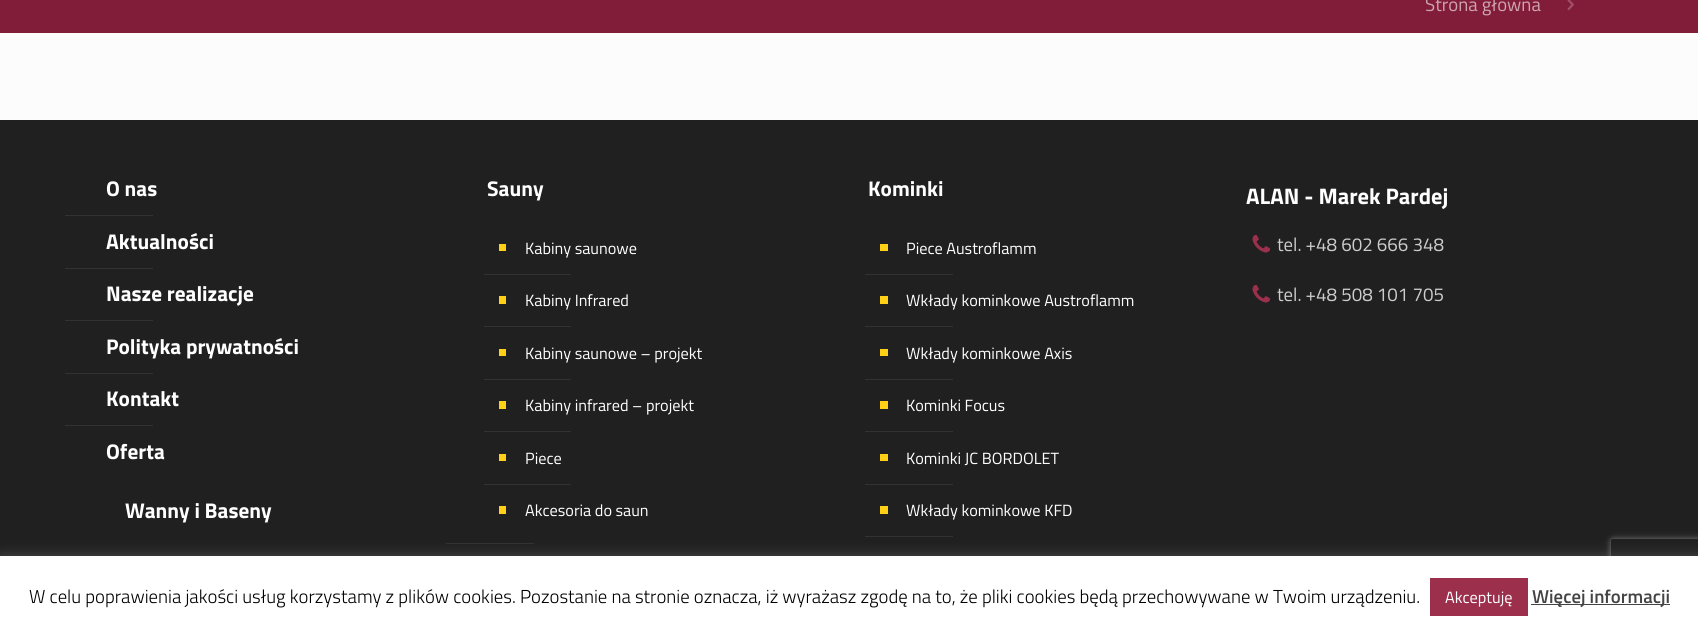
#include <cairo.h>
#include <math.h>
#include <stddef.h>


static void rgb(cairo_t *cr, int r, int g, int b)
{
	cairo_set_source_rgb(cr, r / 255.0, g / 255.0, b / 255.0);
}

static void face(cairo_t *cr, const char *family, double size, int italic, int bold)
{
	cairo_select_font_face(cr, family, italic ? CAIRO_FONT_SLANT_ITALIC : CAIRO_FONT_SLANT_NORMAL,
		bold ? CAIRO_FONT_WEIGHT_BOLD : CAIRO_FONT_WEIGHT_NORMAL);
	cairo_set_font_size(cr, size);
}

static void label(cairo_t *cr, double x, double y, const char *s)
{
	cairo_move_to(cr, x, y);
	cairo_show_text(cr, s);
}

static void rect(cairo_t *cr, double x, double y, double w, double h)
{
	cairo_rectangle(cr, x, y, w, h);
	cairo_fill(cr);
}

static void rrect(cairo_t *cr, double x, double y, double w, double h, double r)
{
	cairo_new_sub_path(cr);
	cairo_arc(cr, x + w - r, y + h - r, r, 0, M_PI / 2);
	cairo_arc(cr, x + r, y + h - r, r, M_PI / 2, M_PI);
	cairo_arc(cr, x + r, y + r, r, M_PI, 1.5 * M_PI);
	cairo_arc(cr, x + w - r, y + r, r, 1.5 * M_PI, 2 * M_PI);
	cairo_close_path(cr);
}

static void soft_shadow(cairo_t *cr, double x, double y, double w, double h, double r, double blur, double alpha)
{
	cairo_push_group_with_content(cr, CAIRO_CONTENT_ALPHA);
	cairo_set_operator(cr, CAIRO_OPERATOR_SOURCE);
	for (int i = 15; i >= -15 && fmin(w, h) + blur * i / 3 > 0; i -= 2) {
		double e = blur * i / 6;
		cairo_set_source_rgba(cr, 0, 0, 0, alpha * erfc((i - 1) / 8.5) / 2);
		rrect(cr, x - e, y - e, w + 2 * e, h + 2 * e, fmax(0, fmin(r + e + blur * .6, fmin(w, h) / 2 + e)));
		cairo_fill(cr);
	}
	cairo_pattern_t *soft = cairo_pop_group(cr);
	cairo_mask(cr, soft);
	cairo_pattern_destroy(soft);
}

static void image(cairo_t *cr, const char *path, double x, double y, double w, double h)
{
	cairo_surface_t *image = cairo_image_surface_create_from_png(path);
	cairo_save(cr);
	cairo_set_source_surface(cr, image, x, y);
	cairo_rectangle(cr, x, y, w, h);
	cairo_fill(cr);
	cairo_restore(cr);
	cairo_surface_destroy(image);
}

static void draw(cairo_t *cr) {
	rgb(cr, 252, 252, 252);
	cairo_paint(cr);
	rgb(cr, 129, 28, 57);
	rect(cr, 0, 0, 1698, 33);
	face(cr, "Titillium Web", 18.75, 0, 0);
	rgb(cr, 205, 164, 176);
	label(cr, 1425, 11, "Strona główna");
	image(cr, "image0.png", 1567, 0, 7, 10);
	rgb(cr, 32, 32, 32);
	rect(cr, 0, 120, 1698, 436);
	face(cr, "Titillium Web", 21.25, 0, 1);
	rgb(cr, 255, 255, 255);
	label(cr, 106, 196, "O nas");
	rgb(cr, 50, 50, 50);
	rect(cr, 65, 215, 88, 1);
	rgb(cr, 255, 255, 255);
	label(cr, 106, 249, "Aktualności");
	rgb(cr, 50, 50, 50);
	rect(cr, 65, 268, 88, 1);
	rgb(cr, 255, 255, 255);
	label(cr, 106, 301, "Nasze realizacje");
	rgb(cr, 50, 50, 50);
	rect(cr, 65, 320, 88, 1);
	rgb(cr, 255, 255, 255);
	label(cr, 106, 354, "Polityka prywatności");
	rgb(cr, 50, 50, 50);
	rect(cr, 65, 373, 88, 1);
	rgb(cr, 255, 255, 255);
	label(cr, 106, 406, "Kontakt");
	rgb(cr, 50, 50, 50);
	rect(cr, 65, 425, 88, 1);
	rgb(cr, 255, 255, 255);
	label(cr, 106, 459, "Oferta");
	label(cr, 125, 518, "Wanny i Baseny");
	label(cr, 487, 196, "Sauny");
	rgb(cr, 255, 208, 21);
	rect(cr, 499, 244, 7, 7);
	face(cr, "Titillium Web", 16.25, 0, 0);
	rgb(cr, 255, 255, 255);
	label(cr, 525, 254, "Kabiny saunowe");
	rgb(cr, 50, 50, 50);
	rect(cr, 484, 274, 87, 1);
	rgb(cr, 255, 208, 21);
	rect(cr, 499, 296, 7, 8);
	rgb(cr, 255, 255, 255);
	label(cr, 525, 306, "Kabiny Infrared");
	rgb(cr, 50, 50, 50);
	rect(cr, 484, 326, 87, 1);
	rgb(cr, 255, 208, 21);
	rect(cr, 499, 349, 7, 7);
	rgb(cr, 255, 255, 255);
	label(cr, 525, 359, "Kabiny saunowe – projekt");
	rgb(cr, 50, 50, 50);
	rect(cr, 484, 379, 87, 1);
	rgb(cr, 255, 208, 21);
	rect(cr, 499, 401, 7, 8);
	rgb(cr, 255, 255, 255);
	label(cr, 525, 411, "Kabiny infrared – projekt");
	rgb(cr, 50, 50, 50);
	rect(cr, 484, 431, 87, 1);
	rgb(cr, 255, 208, 21);
	rect(cr, 499, 454, 7, 7);
	rgb(cr, 255, 255, 255);
	label(cr, 525, 464, "Piece");
	rgb(cr, 50, 50, 50);
	rect(cr, 484, 484, 87, 1);
	rgb(cr, 255, 208, 21);
	rect(cr, 499, 506, 7, 8);
	rgb(cr, 255, 255, 255);
	label(cr, 525, 516, "Akcesoria do saun");
	rgb(cr, 50, 50, 50);
	rect(cr, 446, 543, 88, 1);
	face(cr, "Titillium Web", 21.25, 0, 1);
	rgb(cr, 255, 255, 255);
	label(cr, 868, 196, "Kominki");
	rgb(cr, 255, 208, 21);
	rect(cr, 880, 244, 8, 7);
	face(cr, "Titillium Web", 16.25, 0, 0);
	rgb(cr, 255, 255, 255);
	label(cr, 906, 254, "Piece Austroflamm");
	rgb(cr, 50, 50, 50);
	rect(cr, 865, 274, 88, 1);
	rgb(cr, 255, 208, 21);
	rect(cr, 880, 296, 8, 8);
	rgb(cr, 255, 255, 255);
	label(cr, 906, 306, "Wkłady kominkowe Austroflamm");
	rgb(cr, 50, 50, 50);
	rect(cr, 865, 326, 88, 1);
	rgb(cr, 255, 208, 21);
	rect(cr, 880, 349, 8, 7);
	rgb(cr, 255, 255, 255);
	label(cr, 906, 359, "Wkłady kominkowe Axis");
	rgb(cr, 50, 50, 50);
	rect(cr, 865, 379, 88, 1);
	rgb(cr, 255, 208, 21);
	rect(cr, 880, 401, 8, 8);
	rgb(cr, 255, 255, 255);
	label(cr, 906, 411, "Kominki Focus");
	rgb(cr, 50, 50, 50);
	rect(cr, 865, 431, 88, 1);
	rgb(cr, 255, 208, 21);
	rect(cr, 880, 454, 8, 7);
	rgb(cr, 255, 255, 255);
	label(cr, 906, 464, "Kominki JC BORDOLET");
	rgb(cr, 50, 50, 50);
	rect(cr, 865, 484, 88, 1);
	rgb(cr, 255, 208, 21);
	rect(cr, 880, 506, 8, 8);
	rgb(cr, 255, 255, 255);
	label(cr, 906, 516, "Wkłady kominkowe KFD");
	rgb(cr, 50, 50, 50);
	rect(cr, 865, 536, 88, 1);
	face(cr, "Titillium Web", 22.5, 0, 1);
	rgb(cr, 255, 255, 255);
	label(cr, 1246, 204, "ALAN - Marek Pardej");
	image(cr, "image1.png", 1252, 234, 19, 19);
	face(cr, "Titillium Web", 18.75, 0, 0);
	rgb(cr, 204, 204, 204);
	label(cr, 1277, 251, "tel. +48 602 666 348");
	image(cr, "image1.png", 1252, 284, 19, 19);
	label(cr, 1277, 301, "tel. +48 508 101 705");
	cairo_save(cr);
	cairo_set_fill_rule(cr, CAIRO_FILL_RULE_EVEN_ODD);
	cairo_new_path(cr);
	cairo_move_to(cr, 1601, 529);
	cairo_line_to(cr, 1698, 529);
	cairo_line_to(cr, 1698, 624);
	cairo_line_to(cr, 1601, 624);
	cairo_close_path(cr);
	cairo_move_to(cr, 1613.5, 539);
	cairo_line_to(cr, 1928.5, 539);
	cairo_curve_to(cr, 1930, 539, 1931, 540, 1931, 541.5);
	cairo_line_to(cr, 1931, 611.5);
	cairo_curve_to(cr, 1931, 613, 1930, 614, 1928.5, 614);
	cairo_line_to(cr, 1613.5, 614);
	cairo_curve_to(cr, 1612, 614, 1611, 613, 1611, 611.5);
	cairo_line_to(cr, 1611, 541.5);
	cairo_curve_to(cr, 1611, 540, 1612, 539, 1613.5, 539);
	cairo_close_path(cr);
	cairo_clip(cr);
	rgb(cr, 128, 128, 128);
	soft_shadow(cr, 1611, 539, 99, 75, 2.5, 3, 1);
	cairo_restore(cr);
	rgb(cr, 172, 171, 171);
	soft_shadow(cr, 0, 555, 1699, 75, 0, 6, 0.3);
	rgb(cr, 255, 255, 255);
	rect(cr, 0, 556, 1698, 75);
	face(cr, "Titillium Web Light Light", 18.75, 0, 0);
	rgb(cr, 0, 0, 0);
	label(cr, 29, 603, "W celu poprawienia jakości usług korzystamy z plików cookies. Pozostanie na stronie oznacza, iż wyrażasz zgodę na to, że pliki cookies będą przechowywane w Twoim urządzeniu.");
	rgb(cr, 155, 47, 76);
	rect(cr, 1430, 578, 98, 38);
	face(cr, "Titillium Web", 16.25, 0, 0);
	rgb(cr, 255, 255, 255);
	label(cr, 1445, 603, "Akceptuję");
	rgb(cr, 68, 68, 68);
	rect(cr, 1531, 604, 139, 1);
	face(cr, "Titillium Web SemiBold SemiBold", 18.75, 0, 0);
	label(cr, 1532, 603, "Więcej informacji");
}

int main(void) {
	cairo_surface_t *surface = cairo_image_surface_create(CAIRO_FORMAT_RGB24, 1698, 631);
	cairo_t *cr = cairo_create(surface);
	cairo_font_options_t *options = cairo_font_options_create();
	cairo_font_options_set_hint_metrics(options, CAIRO_HINT_METRICS_OFF);
	cairo_font_options_set_hint_style(options, CAIRO_HINT_STYLE_NONE);
	cairo_set_font_options(cr, options);
	cairo_set_miter_limit(cr, 4);
	draw(cr);
	cairo_surface_write_to_png(surface, "render.png");
	cairo_font_options_destroy(options);
	cairo_destroy(cr);
	cairo_surface_destroy(surface);
	return 0;
}
